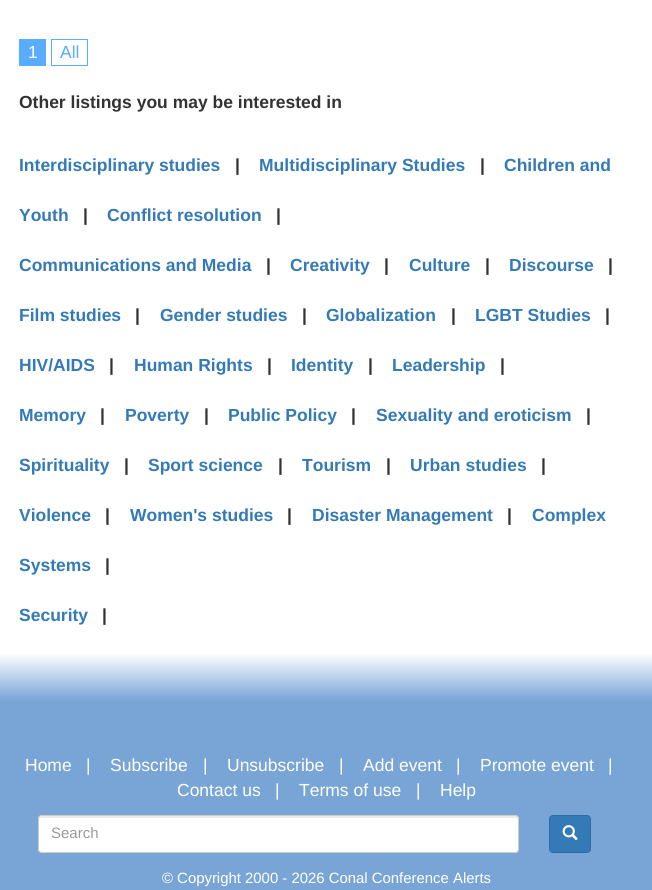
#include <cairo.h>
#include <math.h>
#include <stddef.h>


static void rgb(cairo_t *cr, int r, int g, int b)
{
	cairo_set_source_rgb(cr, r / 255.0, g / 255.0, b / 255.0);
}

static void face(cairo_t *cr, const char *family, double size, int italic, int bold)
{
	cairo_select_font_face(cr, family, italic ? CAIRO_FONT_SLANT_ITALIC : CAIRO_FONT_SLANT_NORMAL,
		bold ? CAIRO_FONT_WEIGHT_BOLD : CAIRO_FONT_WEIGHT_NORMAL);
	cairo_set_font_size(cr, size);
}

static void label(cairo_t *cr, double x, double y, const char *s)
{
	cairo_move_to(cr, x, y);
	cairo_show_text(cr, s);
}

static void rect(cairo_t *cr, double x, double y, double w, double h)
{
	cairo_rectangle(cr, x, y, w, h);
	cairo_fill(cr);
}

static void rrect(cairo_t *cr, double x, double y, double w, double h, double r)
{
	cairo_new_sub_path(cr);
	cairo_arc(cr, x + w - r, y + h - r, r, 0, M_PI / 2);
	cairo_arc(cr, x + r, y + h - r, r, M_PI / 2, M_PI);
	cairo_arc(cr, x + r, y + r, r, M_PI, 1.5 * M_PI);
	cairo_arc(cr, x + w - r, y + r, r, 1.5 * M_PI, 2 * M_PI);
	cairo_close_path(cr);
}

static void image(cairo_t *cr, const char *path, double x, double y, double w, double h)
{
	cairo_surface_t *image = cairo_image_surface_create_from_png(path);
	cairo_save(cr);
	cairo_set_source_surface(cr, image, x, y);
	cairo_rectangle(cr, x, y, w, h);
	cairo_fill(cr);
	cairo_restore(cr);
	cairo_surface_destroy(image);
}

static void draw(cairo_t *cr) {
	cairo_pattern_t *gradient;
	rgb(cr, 255, 255, 255);
	cairo_paint(cr);
	rgb(cr, 89, 172, 255);
	rect(cr, 19, 39, 27, 27);
	face(cr, "Liberation Sans", 17.5, 0, 0);
	rgb(cr, 255, 255, 255);
	label(cr, 28, 58, "1");
	cairo_rectangle(cr, 51.5, 39.5, 36, 26);
	rgb(cr, 89, 172, 255);
	cairo_set_line_width(cr, 1);
	cairo_stroke(cr);
	label(cr, 60, 58, "All");
	face(cr, "Liberation Sans", 17.5, 0, 1);
	rgb(cr, 51, 51, 51);
	label(cr, 19, 108, "Other listings you may be interested in");
	rgb(cr, 51, 122, 183);
	label(cr, 19, 171, "Interdisciplinary studies");
	rgb(cr, 51, 51, 51);
	label(cr, 235, 171, "|");
	rgb(cr, 51, 122, 183);
	label(cr, 259, 171, "Multidisciplinary Studies");
	rgb(cr, 51, 51, 51);
	label(cr, 480, 171, "|");
	rgb(cr, 51, 122, 183);
	label(cr, 504, 171, "Children and");
	label(cr, 19, 221, "Youth");
	rgb(cr, 51, 51, 51);
	label(cr, 83, 221, "|");
	rgb(cr, 51, 122, 183);
	label(cr, 107, 221, "Conflict resolution");
	rgb(cr, 51, 51, 51);
	label(cr, 276, 221, "|");
	rgb(cr, 51, 122, 183);
	label(cr, 19, 271, "Communications and Media");
	rgb(cr, 51, 51, 51);
	label(cr, 266, 271, "|");
	rgb(cr, 51, 122, 183);
	label(cr, 290, 271, "Creativity");
	rgb(cr, 51, 51, 51);
	label(cr, 384, 271, "|");
	rgb(cr, 51, 122, 183);
	label(cr, 409, 271, "Culture");
	rgb(cr, 51, 51, 51);
	label(cr, 485, 271, "|");
	rgb(cr, 51, 122, 183);
	label(cr, 509, 271, "Discourse");
	rgb(cr, 51, 51, 51);
	label(cr, 608, 271, "|");
	rgb(cr, 51, 122, 183);
	label(cr, 19, 321, "Film studies");
	rgb(cr, 51, 51, 51);
	label(cr, 135, 321, "|");
	rgb(cr, 51, 122, 183);
	label(cr, 160, 321, "Gender studies");
	rgb(cr, 51, 51, 51);
	label(cr, 302, 321, "|");
	rgb(cr, 51, 122, 183);
	label(cr, 326, 321, "Globalization");
	rgb(cr, 51, 51, 51);
	label(cr, 451, 321, "|");
	rgb(cr, 51, 122, 183);
	label(cr, 475, 321, "LGBT Studies");
	rgb(cr, 51, 51, 51);
	label(cr, 605, 321, "|");
	rgb(cr, 51, 122, 183);
	label(cr, 19, 371, "HIV/AIDS");
	rgb(cr, 51, 51, 51);
	label(cr, 109, 371, "|");
	rgb(cr, 51, 122, 183);
	label(cr, 134, 371, "Human Rights");
	rgb(cr, 51, 51, 51);
	label(cr, 267, 371, "|");
	rgb(cr, 51, 122, 183);
	label(cr, 291, 371, "Identity");
	rgb(cr, 51, 51, 51);
	label(cr, 368, 371, "|");
	rgb(cr, 51, 122, 183);
	label(cr, 392, 371, "Leadership");
	rgb(cr, 51, 51, 51);
	label(cr, 500, 371, "|");
	rgb(cr, 51, 122, 183);
	label(cr, 19, 421, "Memory");
	rgb(cr, 51, 51, 51);
	label(cr, 100, 421, "|");
	rgb(cr, 51, 122, 183);
	label(cr, 125, 421, "Poverty");
	rgb(cr, 51, 51, 51);
	label(cr, 204, 421, "|");
	rgb(cr, 51, 122, 183);
	label(cr, 228, 421, "Public Policy");
	rgb(cr, 51, 51, 51);
	label(cr, 351, 421, "|");
	rgb(cr, 51, 122, 183);
	label(cr, 376, 421, "Sexuality and eroticism");
	rgb(cr, 51, 51, 51);
	label(cr, 586, 421, "|");
	rgb(cr, 51, 122, 183);
	label(cr, 19, 471, "Spirituality");
	rgb(cr, 51, 51, 51);
	label(cr, 124, 471, "|");
	rgb(cr, 51, 122, 183);
	label(cr, 148, 471, "Sport science");
	rgb(cr, 51, 51, 51);
	label(cr, 278, 471, "|");
	rgb(cr, 51, 122, 183);
	label(cr, 302, 471, "Tourism");
	rgb(cr, 51, 51, 51);
	label(cr, 386, 471, "|");
	rgb(cr, 51, 122, 183);
	label(cr, 410, 471, "Urban studies");
	rgb(cr, 51, 51, 51);
	label(cr, 541, 471, "|");
	rgb(cr, 51, 122, 183);
	label(cr, 19, 521, "Violence");
	rgb(cr, 51, 51, 51);
	label(cr, 105, 521, "|");
	rgb(cr, 51, 122, 183);
	label(cr, 130, 521, "Women's studies");
	rgb(cr, 51, 51, 51);
	label(cr, 287, 521, "|");
	rgb(cr, 51, 122, 183);
	label(cr, 312, 521, "Disaster Management");
	rgb(cr, 51, 51, 51);
	label(cr, 507, 521, "|");
	rgb(cr, 51, 122, 183);
	label(cr, 532, 521, "Complex");
	label(cr, 19, 571, "Systems");
	rgb(cr, 51, 51, 51);
	label(cr, 105, 571, "|");
	rgb(cr, 51, 122, 183);
	label(cr, 19, 621, "Security");
	rgb(cr, 51, 51, 51);
	label(cr, 102, 621, "|");
	gradient = cairo_pattern_create_linear(326, 653, 326, 890);
	cairo_pattern_add_color_stop_rgba(gradient, 0, 1, 1, 1, 1);
	cairo_pattern_add_color_stop_rgba(gradient, 0.2, 0.475, 0.647, 0.839, 1);
	cairo_set_source(cr, gradient);
	cairo_pattern_destroy(gradient);
	rect(cr, 0, 654, 652, 236);
	face(cr, "Liberation Sans", 17.5, 0, 0);
	rgb(cr, 255, 255, 255);
	label(cr, 25, 771, "Home");
	label(cr, 86, 771, "|");
	label(cr, 110, 771, "Subscribe");
	label(cr, 203, 771, "|");
	label(cr, 227, 771, "Unsubscribe");
	label(cr, 339, 771, "|");
	label(cr, 363, 771, "Add event");
	label(cr, 456, 771, "|");
	label(cr, 480, 771, "Promote event");
	label(cr, 608, 771, "|");
	label(cr, 177, 796, "Contact us");
	label(cr, 275, 796, "|");
	label(cr, 299, 796, "Terms of use");
	label(cr, 416, 796, "|");
	label(cr, 440, 796, "Help");
	rrect(cr, 38, 815, 481, 38, 4);
	cairo_fill(cr);
	rgb(cr, 236, 236, 236);
	cairo_new_path(cr);
	cairo_move_to(cr, 41, 818);
	cairo_line_to(cr, 515, 818);
	cairo_curve_to(cr, 516, 818, 518, 819, 518, 820);
	cairo_curve_to(cr, 518, 818, 518, 816, 516, 816);
	cairo_line_to(cr, 42, 816);
	cairo_line_to(cr, 39, 817);
	cairo_line_to(cr, 39, 820);
	cairo_curve_to(cr, 39, 819, 40, 818, 41, 818);
	cairo_close_path(cr);
	cairo_fill(cr);
	rrect(cr, 38.5, 815.5, 480, 37, 3.5);
	rgb(cr, 204, 204, 204);
	cairo_stroke(cr);
	face(cr, "Liberation Sans", 15, 0, 0);
	rgb(cr, 153, 153, 153);
	label(cr, 51, 838, "Search");
	rgb(cr, 51, 122, 183);
	rrect(cr, 549.5, 815.5, 41, 37, 3.5);
	cairo_fill_preserve(cr);
	rgb(cr, 46, 109, 164);
	cairo_stroke(cr);
	image(cr, "image0.png", 562, 825, 16, 15);
	face(cr, "Liberation Sans", 14.9, 0, 0);
	rgb(cr, 255, 255, 255);
	label(cr, 162, 883, "© Copyright 2000 - 2026 Conal Conference Alerts");
}

int main(void) {
	cairo_surface_t *surface = cairo_image_surface_create(CAIRO_FORMAT_RGB24, 652, 890);
	cairo_t *cr = cairo_create(surface);
	cairo_font_options_t *options = cairo_font_options_create();
	cairo_font_options_set_hint_metrics(options, CAIRO_HINT_METRICS_OFF);
	cairo_font_options_set_hint_style(options, CAIRO_HINT_STYLE_NONE);
	cairo_set_font_options(cr, options);
	cairo_set_miter_limit(cr, 4);
	draw(cr);
	cairo_surface_write_to_png(surface, "render.png");
	cairo_font_options_destroy(options);
	cairo_destroy(cr);
	cairo_surface_destroy(surface);
	return 0;
}
